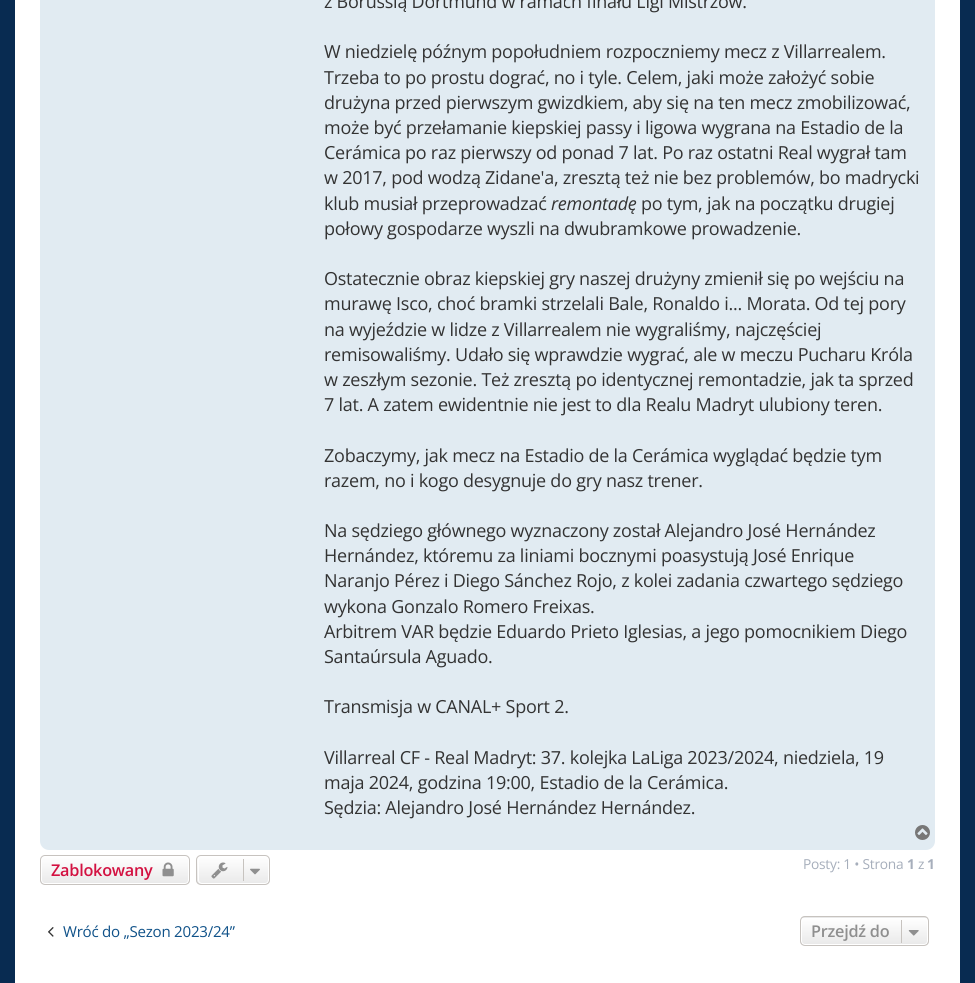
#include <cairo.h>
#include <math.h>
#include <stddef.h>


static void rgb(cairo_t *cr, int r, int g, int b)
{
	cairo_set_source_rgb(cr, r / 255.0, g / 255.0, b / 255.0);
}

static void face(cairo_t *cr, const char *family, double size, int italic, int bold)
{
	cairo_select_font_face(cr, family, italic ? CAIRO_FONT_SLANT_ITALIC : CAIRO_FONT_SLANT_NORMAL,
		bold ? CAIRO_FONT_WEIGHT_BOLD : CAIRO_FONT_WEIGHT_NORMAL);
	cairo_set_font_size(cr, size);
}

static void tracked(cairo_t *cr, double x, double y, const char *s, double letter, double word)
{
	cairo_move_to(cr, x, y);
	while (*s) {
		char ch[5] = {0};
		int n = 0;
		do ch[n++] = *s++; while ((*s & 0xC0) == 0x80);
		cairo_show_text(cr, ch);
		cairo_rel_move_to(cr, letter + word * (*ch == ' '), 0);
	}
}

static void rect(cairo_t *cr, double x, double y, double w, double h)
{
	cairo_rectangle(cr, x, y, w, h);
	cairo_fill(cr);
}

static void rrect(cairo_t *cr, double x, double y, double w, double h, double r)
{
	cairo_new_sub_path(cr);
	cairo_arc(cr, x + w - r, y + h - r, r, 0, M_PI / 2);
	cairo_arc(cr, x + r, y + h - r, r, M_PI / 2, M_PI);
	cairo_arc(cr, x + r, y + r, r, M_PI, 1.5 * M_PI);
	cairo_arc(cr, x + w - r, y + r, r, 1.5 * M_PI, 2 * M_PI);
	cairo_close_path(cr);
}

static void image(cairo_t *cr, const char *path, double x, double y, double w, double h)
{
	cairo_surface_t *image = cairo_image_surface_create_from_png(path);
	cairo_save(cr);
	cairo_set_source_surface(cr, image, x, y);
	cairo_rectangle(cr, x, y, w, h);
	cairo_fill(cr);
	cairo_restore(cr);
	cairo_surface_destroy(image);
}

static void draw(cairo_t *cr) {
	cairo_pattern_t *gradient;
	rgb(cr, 8, 43, 81);
	cairo_paint(cr);
	rgb(cr, 255, 255, 255);
	rect(cr, 15, 0, 945, 983);
	rgb(cr, 225, 235, 242);
	rrect(cr, 40, -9, 895, 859, 9);
	cairo_fill(cr);
	face(cr, "Open Sans", 18, 0, 0);
	rgb(cr, 51, 51, 51);
	tracked(cr, 324, 8, "z Borussią Dortmund w ramach finału Ligi Mistrzów.", -0.25, 0);
	tracked(cr, 324, 58, "W niedzielę późnym popołudniem rozpoczniemy mecz z Villarrealem.", -0.25, 0);
	tracked(cr, 324, 84, "Trzeba to po prostu dograć, no i tyle. Celem, jaki może założyć sobie", -0.25, 0);
	tracked(cr, 324, 109, "drużyna przed pierwszym gwizdkiem, aby się na ten mecz zmobilizować,", -0.25, 0);
	tracked(cr, 324, 134, "może być przełamanie kiepskiej passy i ligowa wygrana na Estadio de la", -0.25, 0);
	tracked(cr, 324, 159, "Cerámica po raz pierwszy od ponad 7 lat. Po raz ostatni Real wygrał tam", -0.25, 0);
	tracked(cr, 324, 184, "w 2017, pod wodzą Zidane'a, zresztą też nie bez problemów, bo madrycki", -0.25, 0);
	tracked(cr, 324, 210, "klub musiał przeprowadzać", -0.25, 0);
	face(cr, "Open Sans", 18, 1, 0);
	tracked(cr, 551, 210, "remontadę", -0.25, 0);
	face(cr, "Open Sans", 18, 0, 0);
	tracked(cr, 641, 210, "po tym, jak na początku drugiej", -0.25, 0);
	tracked(cr, 324, 235, "połowy gospodarze wyszli na dwubramkowe prowadzenie.", -0.25, 0);
	tracked(cr, 324, 285, "Ostatecznie obraz kiepskiej gry naszej drużyny zmienił się po wejściu na", -0.25, 0);
	tracked(cr, 324, 310, "murawę Isco, choć bramki strzelali Bale, Ronaldo i... Morata. Od tej pory", -0.25, 0);
	tracked(cr, 324, 336, "na wyjeździe w lidze z Villarrealem nie wygraliśmy, najczęściej", -0.25, 0);
	tracked(cr, 324, 361, "remisowaliśmy. Udało się wprawdzie wygrać, ale w meczu Pucharu Króla", -0.25, 0);
	tracked(cr, 324, 386, "w zeszłym sezonie. Też zresztą po identycznej remontadzie, jak ta sprzed", -0.25, 0);
	tracked(cr, 324, 411, "7 lat. A zatem ewidentnie nie jest to dla Realu Madryt ulubiony teren.", -0.25, 0);
	tracked(cr, 324, 462, "Zobaczymy, jak mecz na Estadio de la Cerámica wyglądać będzie tym", -0.25, 0);
	tracked(cr, 324, 487, "razem, no i kogo desygnuje do gry nasz trener.", -0.25, 0);
	tracked(cr, 324, 537, "Na sędziego głównego wyznaczony został Alejandro José Hernández", -0.25, 0);
	tracked(cr, 324, 562, "Hernández, któremu za liniami bocznymi poasystują José Enrique", -0.25, 0);
	tracked(cr, 324, 587, "Naranjo Pérez i Diego Sánchez Rojo, z kolei zadania czwartego sędziego", -0.25, 0);
	tracked(cr, 324, 613, "wykona Gonzalo Romero Freixas.", -0.25, 0);
	tracked(cr, 324, 638, "Arbitrem VAR będzie Eduardo Prieto Iglesias, a jego pomocnikiem Diego", -0.25, 0);
	tracked(cr, 324, 663, "Santaúrsula Aguado.", -0.25, 0);
	tracked(cr, 324, 713, "Transmisja w CANAL+ Sport 2.", -0.25, 0);
	tracked(cr, 324, 764, "Villarreal CF - Real Madryt: 37. kolejka LaLiga 2023/2024, niedziela, 19", -0.25, 0);
	tracked(cr, 324, 789, "maja 2024, godzina 19:00, Estadio de la Cerámica.", -0.25, 0);
	tracked(cr, 324, 814, "Sędzia: Alejandro José Hernández Hernández.", -0.25, 0);
	image(cr, "image0.png", 915, 825, 15, 15);
	cairo_save(cr);
	rrect(cr, 40, 855, 150, 30, 5);
	cairo_clip(cr);
	gradient = cairo_pattern_create_linear(115, 856, 115, 884);
	cairo_pattern_add_color_stop_rgba(gradient, 0, 1, 1, 1, 1);
	cairo_pattern_add_color_stop_rgba(gradient, 1, 0.914, 0.914, 0.914, 1);
	cairo_set_source(cr, gradient);
	cairo_pattern_destroy(gradient);
	rect(cr, 40, 856, 150, 28);
	cairo_restore(cr);
	rrect(cr, 41.5, 856.5, 147, 27, 3.5);
	rgb(cr, 255, 255, 255);
	cairo_set_line_width(cr, 1);
	cairo_stroke(cr);
	rrect(cr, 40.5, 855.5, 149, 29, 4.5);
	rgb(cr, 199, 195, 191);
	cairo_stroke(cr);
	face(cr, "Open Sans SemiBold", 16.25, 0, 0);
	rgb(cr, 211, 17, 65);
	tracked(cr, 51, 876, "Zablokowany", -0.25, 0);
	image(cr, "image1.png", 162, 862, 12, 15);
	cairo_save(cr);
	rrect(cr, 196, 855, 74, 30, 5);
	cairo_clip(cr);
	gradient = cairo_pattern_create_linear(233, 856, 233, 884);
	cairo_pattern_add_color_stop_rgba(gradient, 0, 1, 1, 1, 1);
	cairo_pattern_add_color_stop_rgba(gradient, 1, 0.914, 0.914, 0.914, 1);
	cairo_set_source(cr, gradient);
	cairo_pattern_destroy(gradient);
	rect(cr, 196, 856, 74, 28);
	cairo_restore(cr);
	rrect(cr, 198.5, 856.5, 70, 27, 3.5);
	rgb(cr, 255, 255, 255);
	cairo_stroke(cr);
	rrect(cr, 196.5, 855.5, 73, 29, 4.5);
	rgb(cr, 199, 195, 191);
	cairo_stroke(cr);
	image(cr, "image2.png", 211, 862, 17, 17);
	rect(cr, 243, 859, 1, 22);
	image(cr, "image3.png", 250, 868, 10, 7);
	face(cr, "Open Sans", 13.75, 0, 0);
	rgb(cr, 166, 174, 187);
	tracked(cr, 803, 869, "Posty: 1 • Strona", -0.25, 0);
	face(cr, "Open Sans", 13.75, 0, 1);
	tracked(cr, 907, 869, "1", -0.25, 0);
	face(cr, "Open Sans", 13.75, 0, 0);
	tracked(cr, 918, 869, "z", -0.25, 0);
	face(cr, "Open Sans", 13.75, 0, 1);
	tracked(cr, 927, 869, "1", -0.25, 0);
	image(cr, "image4.png", 48, 927, 6, 10);
	face(cr, "Open Sans", 15.1, 0, 0);
	rgb(cr, 16, 82, 137);
	tracked(cr, 63, 937, "Wróć do „Sezon 2023/24”", -0.25, 0);
	cairo_save(cr);
	rrect(cr, 800, 916, 129, 30, 5);
	cairo_clip(cr);
	gradient = cairo_pattern_create_linear(864, 890, 864, 918);
	cairo_pattern_add_color_stop_rgba(gradient, 0, 1, 1, 1, 1);
	cairo_pattern_add_color_stop_rgba(gradient, 1, 0.914, 0.914, 0.914, 1);
	cairo_set_source(cr, gradient);
	cairo_pattern_destroy(gradient);
	rect(cr, 800, 916, 129, 2);
	gradient = cairo_pattern_create_linear(864, 918, 864, 945);
	cairo_pattern_add_color_stop_rgba(gradient, 0, 1, 1, 1, 1);
	cairo_pattern_add_color_stop_rgba(gradient, 1, 0.914, 0.914, 0.914, 1);
	cairo_set_source(cr, gradient);
	cairo_pattern_destroy(gradient);
	rect(cr, 800, 918, 129, 27);
	cairo_restore(cr);
	rrect(cr, 801.5, 918.5, 126, 26, 3.5);
	rgb(cr, 255, 255, 255);
	cairo_stroke(cr);
	rrect(cr, 800.5, 916.5, 128, 29, 4.5);
	rgb(cr, 199, 195, 191);
	cairo_stroke(cr);
	face(cr, "Open Sans SemiBold", 16.25, 0, 0);
	rgb(cr, 143, 143, 143);
	tracked(cr, 811, 937, "Przejdź do", -0.25, 0);
	rgb(cr, 199, 195, 191);
	rect(cr, 901, 920, 1, 23);
	image(cr, "image5.png", 908, 930, 11, 6);
}

int main(void) {
	cairo_surface_t *surface = cairo_image_surface_create(CAIRO_FORMAT_RGB24, 975, 983);
	cairo_t *cr = cairo_create(surface);
	cairo_font_options_t *options = cairo_font_options_create();
	cairo_font_options_set_hint_metrics(options, CAIRO_HINT_METRICS_OFF);
	cairo_font_options_set_hint_style(options, CAIRO_HINT_STYLE_NONE);
	cairo_set_font_options(cr, options);
	cairo_set_miter_limit(cr, 4);
	draw(cr);
	cairo_surface_write_to_png(surface, "render.png");
	cairo_font_options_destroy(options);
	cairo_destroy(cr);
	cairo_surface_destroy(surface);
	return 0;
}
